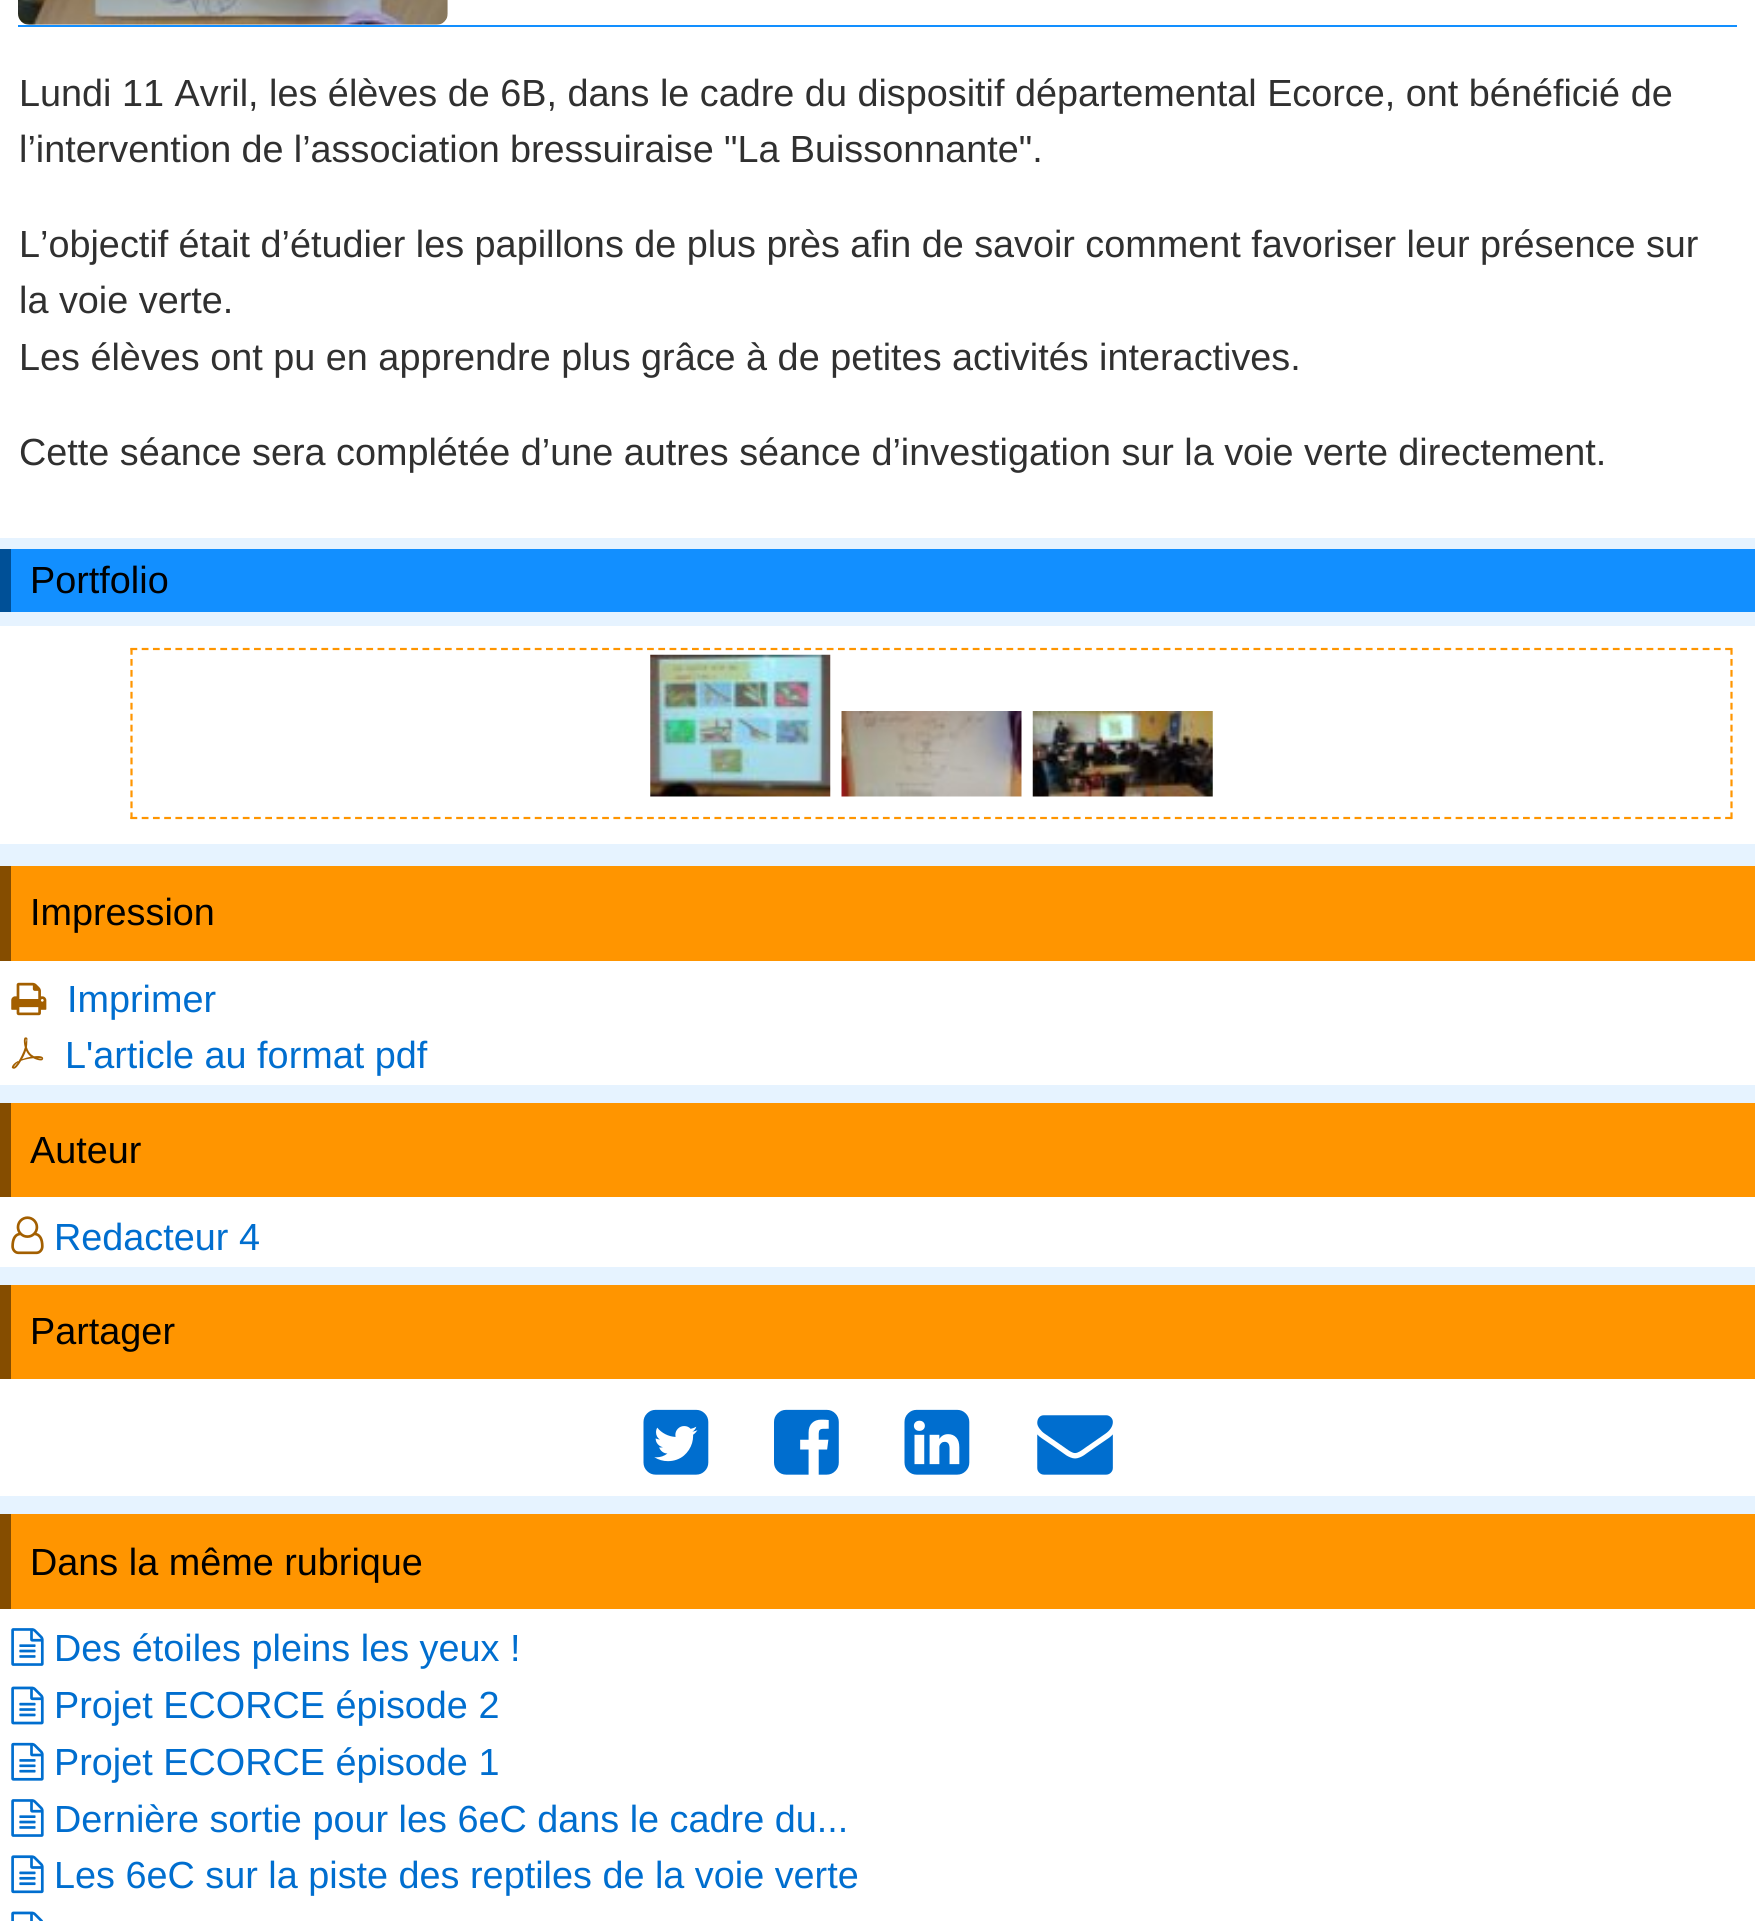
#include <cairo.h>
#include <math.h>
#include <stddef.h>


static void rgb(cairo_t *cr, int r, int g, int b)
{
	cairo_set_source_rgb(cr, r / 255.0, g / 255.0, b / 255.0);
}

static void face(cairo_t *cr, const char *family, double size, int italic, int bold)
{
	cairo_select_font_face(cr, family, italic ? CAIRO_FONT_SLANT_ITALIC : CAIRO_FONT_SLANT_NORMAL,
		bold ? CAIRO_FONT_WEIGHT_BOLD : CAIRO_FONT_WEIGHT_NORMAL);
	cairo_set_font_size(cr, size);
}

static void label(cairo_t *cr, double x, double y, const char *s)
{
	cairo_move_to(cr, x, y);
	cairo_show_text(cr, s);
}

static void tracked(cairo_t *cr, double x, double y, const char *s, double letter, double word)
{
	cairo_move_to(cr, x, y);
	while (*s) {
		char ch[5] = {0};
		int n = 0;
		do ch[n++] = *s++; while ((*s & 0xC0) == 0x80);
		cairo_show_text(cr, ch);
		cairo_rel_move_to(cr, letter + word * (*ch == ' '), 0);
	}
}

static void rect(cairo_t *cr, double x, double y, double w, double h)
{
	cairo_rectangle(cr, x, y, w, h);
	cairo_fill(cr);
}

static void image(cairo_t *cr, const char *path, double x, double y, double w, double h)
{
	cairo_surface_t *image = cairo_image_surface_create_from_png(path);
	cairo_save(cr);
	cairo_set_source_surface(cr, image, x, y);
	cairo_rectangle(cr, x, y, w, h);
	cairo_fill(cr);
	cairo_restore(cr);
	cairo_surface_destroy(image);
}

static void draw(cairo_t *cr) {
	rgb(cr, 230, 243, 255);
	cairo_paint(cr);
	rgb(cr, 255, 255, 255);
	rect(cr, 0, 0, 1755, 538);
	image(cr, "image0.png", 18, 0, 430, 25);
	rgb(cr, 18, 143, 255);
	rect(cr, 18, 25, 1719, 2);
	face(cr, "Liberation Sans", 37.8, 0, 0);
	rgb(cr, 48, 48, 48);
	label(cr, 19, 106, "Lundi 11 Avril, les élèves de 6B, dans le cadre du dispositif départemental Ecorce, ont bénéficié de");
	tracked(cr, 19, 162, "l’intervention de l’association bressuiraise \"La Buissonnante\".", 0, -0.25);
	tracked(cr, 19, 257, "L’objectif était d’étudier les papillons de plus près afin de savoir comment favoriser leur présence sur", 0, -0.1);
	label(cr, 19, 313, "la voie verte.");
	label(cr, 19, 370, "Les élèves ont pu en apprendre plus grâce à de petites activités interactives.");
	tracked(cr, 19, 465, "Cette séance sera complétée d’une autres séance d’investigation sur la voie verte directement.", 0, -0.1);
	rgb(cr, 18, 143, 255);
	rect(cr, 11, 549, 1744, 63);
	rgb(cr, 0, 80, 151);
	rect(cr, 0, 549, 11, 63);
	rgb(cr, 0, 0, 0);
	label(cr, 30, 593, "Portfolio");
	rgb(cr, 255, 255, 255);
	rect(cr, 0, 626, 1755, 218);
	cairo_new_path(cr);
	cairo_move_to(cr, 130.5, 649);
	cairo_line_to(cr, 1732.5, 649);
	rgb(cr, 255, 149, 0);
	cairo_set_line_width(cr, 2.2);
	cairo_set_dash(cr, (double[]){6.75, 4.48}, 2, 0);
	cairo_stroke(cr);
	cairo_new_path(cr);
	cairo_move_to(cr, 1731.5, 648);
	cairo_line_to(cr, 1731.5, 819);
	cairo_set_dash(cr, (double[]){6.75, 4.21}, 2, 0);
	cairo_stroke(cr);
	cairo_new_path(cr);
	cairo_move_to(cr, 130.5, 818);
	cairo_line_to(cr, 1732.5, 818);
	cairo_set_dash(cr, (double[]){6.75, 4.48}, 2, 0);
	cairo_stroke(cr);
	cairo_new_path(cr);
	cairo_move_to(cr, 131.5, 648);
	cairo_line_to(cr, 131.5, 819);
	cairo_set_dash(cr, (double[]){6.75, 4.21}, 2, 0);
	cairo_stroke(cr);
	image(cr, "image1.png", 650, 654, 181, 143);
	image(cr, "image2.png", 841, 711, 181, 86);
	image(cr, "image3.png", 1032, 711, 181, 86);
	rgb(cr, 255, 255, 255);
	rect(cr, 0, 961, 1755, 124);
	rgb(cr, 255, 149, 0);
	rect(cr, 11, 866, 1744, 95);
	rgb(cr, 133, 77, 0);
	rect(cr, 0, 866, 11, 95);
	rgb(cr, 0, 0, 0);
	label(cr, 30, 925, "Impression");
	image(cr, "image4.png", 11, 982, 36, 34);
	rgb(cr, 0, 110, 207);
	label(cr, 67, 1012, "Imprimer");
	image(cr, "image5.png", 11, 1037, 33, 32);
	label(cr, 65, 1068, "L'article au format pdf");
	rgb(cr, 255, 255, 255);
	rect(cr, 0, 1197, 1755, 70);
	rgb(cr, 255, 149, 0);
	rect(cr, 11, 1103, 1744, 94);
	rgb(cr, 133, 77, 0);
	rect(cr, 0, 1103, 11, 94);
	rgb(cr, 0, 0, 0);
	label(cr, 30, 1163, "Auteur");
	image(cr, "image6.png", 11, 1216, 33, 39);
	rgb(cr, 0, 110, 207);
	label(cr, 54, 1250, "Redacteur 4");
	rgb(cr, 255, 255, 255);
	rect(cr, 0, 1379, 1755, 117);
	rgb(cr, 255, 149, 0);
	rect(cr, 11, 1285, 1744, 94);
	rgb(cr, 133, 77, 0);
	rect(cr, 0, 1285, 11, 94);
	rgb(cr, 0, 0, 0);
	label(cr, 30, 1344, "Partager");
	image(cr, "image7.png", 643, 1409, 66, 66);
	image(cr, "image8.png", 774, 1409, 65, 66);
	image(cr, "image9.png", 904, 1409, 66, 66);
	image(cr, "image10.png", 1037, 1415, 76, 60);
	rgb(cr, 255, 255, 255);
	rect(cr, 0, 1609, 1755, 312);
	rgb(cr, 255, 149, 0);
	rect(cr, 11, 1514, 1744, 95);
	rgb(cr, 133, 77, 0);
	rect(cr, 0, 1514, 11, 95);
	rgb(cr, 0, 0, 0);
	label(cr, 30, 1575, "Dans la même rubrique");
	image(cr, "image11.png", 11, 1628, 33, 38);
	rgb(cr, 0, 110, 207);
	label(cr, 54, 1661, "Des étoiles pleins les yeux !");
	image(cr, "image12.png", 11, 1686, 33, 39);
	label(cr, 54, 1718, "Projet ECORCE épisode 2");
	image(cr, "image13.png", 11, 1742, 33, 39);
	label(cr, 54, 1775, "Projet ECORCE épisode 1");
	image(cr, "image11.png", 11, 1799, 33, 38);
	label(cr, 54, 1832, "Dernière sortie pour les 6eC dans le cadre du...");
	image(cr, "image14.png", 11, 1855, 33, 39);
	label(cr, 54, 1888, "Les 6eC sur la piste des reptiles de la voie verte");
	image(cr, "image15.png", 11, 1911, 32, 10);
}

int main(void) {
	cairo_surface_t *surface = cairo_image_surface_create(CAIRO_FORMAT_RGB24, 1755, 1921);
	cairo_t *cr = cairo_create(surface);
	cairo_font_options_t *options = cairo_font_options_create();
	cairo_font_options_set_hint_metrics(options, CAIRO_HINT_METRICS_OFF);
	cairo_font_options_set_hint_style(options, CAIRO_HINT_STYLE_NONE);
	cairo_set_font_options(cr, options);
	cairo_set_miter_limit(cr, 4);
	draw(cr);
	cairo_surface_write_to_png(surface, "render.png");
	cairo_font_options_destroy(options);
	cairo_destroy(cr);
	cairo_surface_destroy(surface);
	return 0;
}
